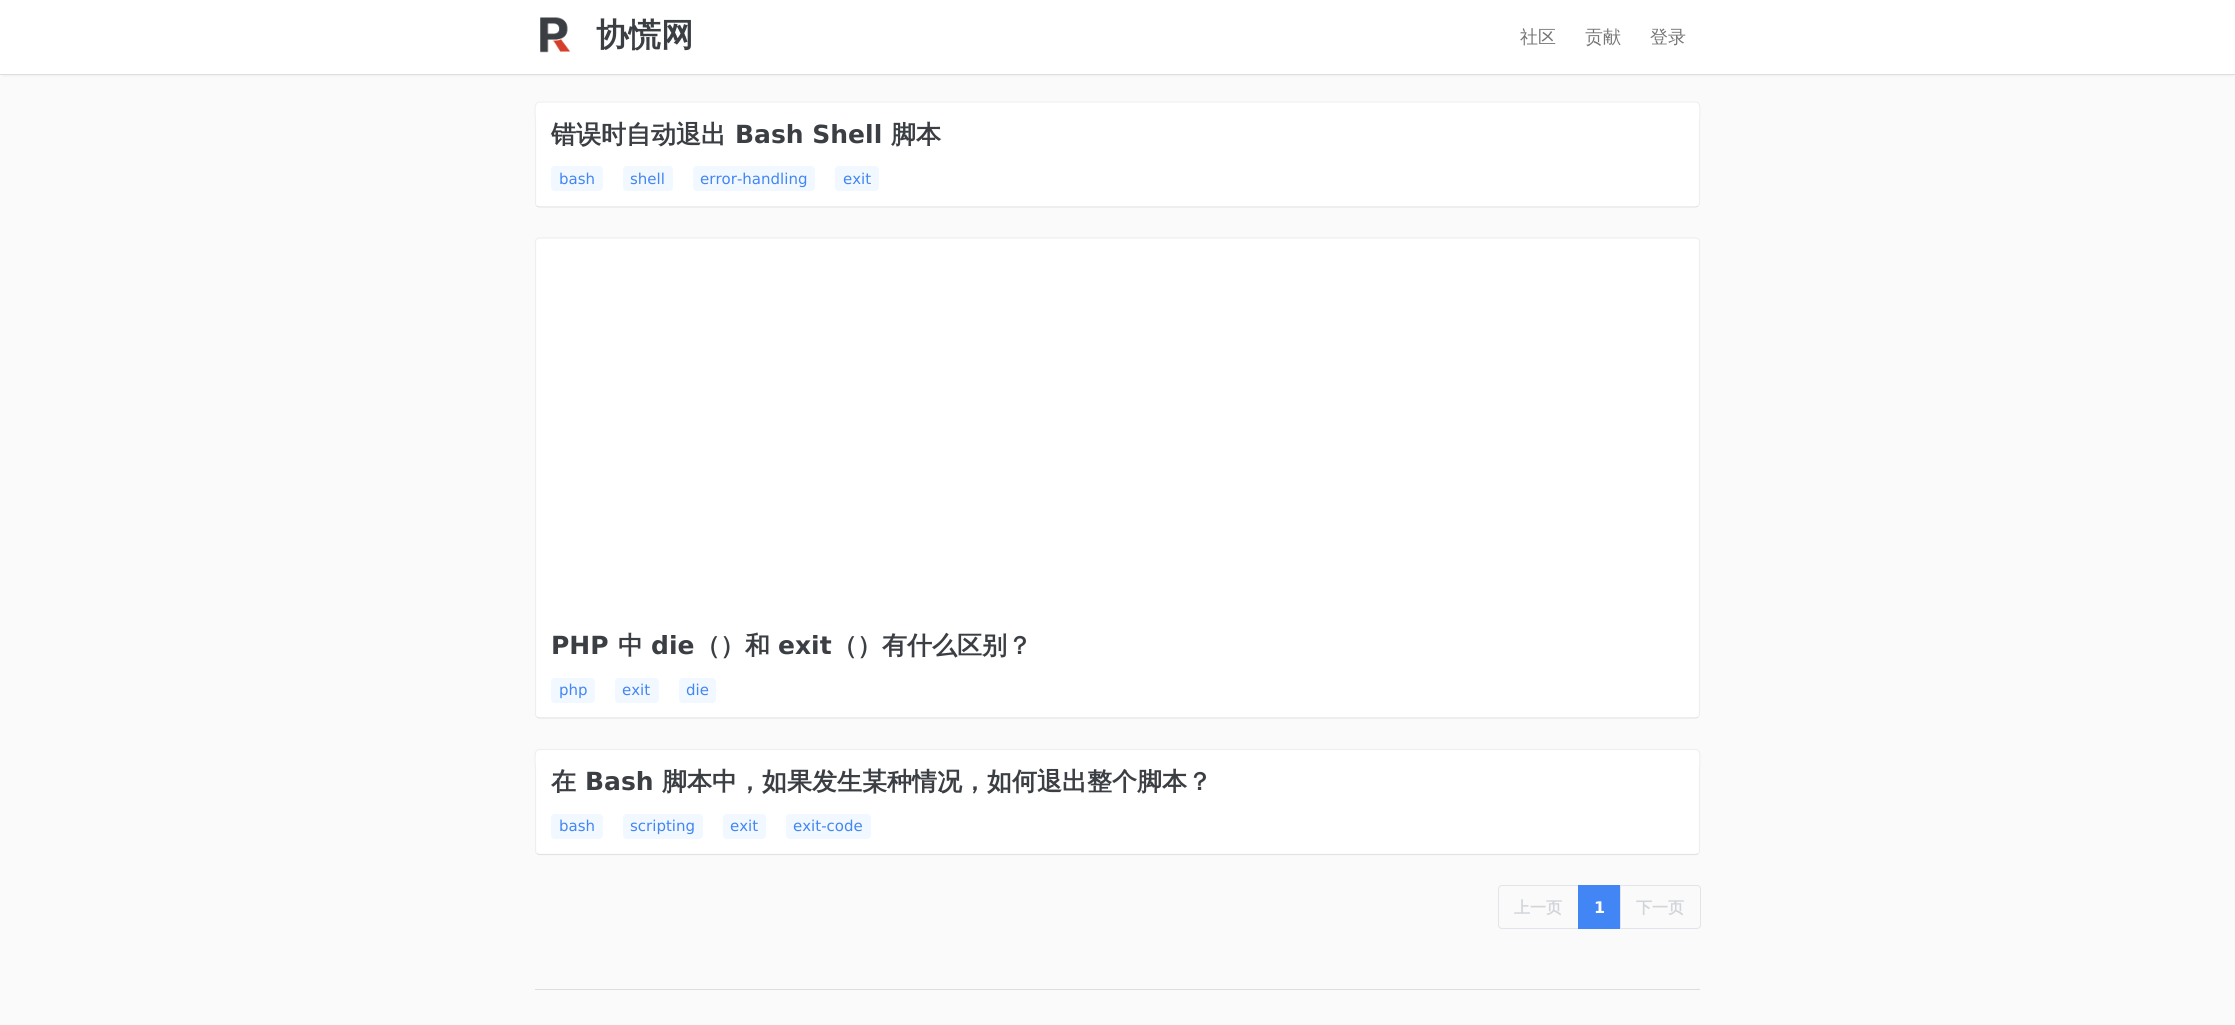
#include <cairo.h>
#include <math.h>
#include <stddef.h>


static void rgb(cairo_t *cr, int r, int g, int b)
{
	cairo_set_source_rgb(cr, r / 255.0, g / 255.0, b / 255.0);
}

static void face(cairo_t *cr, const char *family, double size, int italic, int bold)
{
	cairo_select_font_face(cr, family, italic ? CAIRO_FONT_SLANT_ITALIC : CAIRO_FONT_SLANT_NORMAL,
		bold ? CAIRO_FONT_WEIGHT_BOLD : CAIRO_FONT_WEIGHT_NORMAL);
	cairo_set_font_size(cr, size);
}

static void label(cairo_t *cr, double x, double y, const char *s)
{
	cairo_move_to(cr, x, y);
	cairo_show_text(cr, s);
}

static void rect(cairo_t *cr, double x, double y, double w, double h)
{
	cairo_rectangle(cr, x, y, w, h);
	cairo_fill(cr);
}

static void rrect(cairo_t *cr, double x, double y, double w, double h, double r)
{
	cairo_new_sub_path(cr);
	cairo_arc(cr, x + w - r, y + h - r, r, 0, M_PI / 2);
	cairo_arc(cr, x + r, y + h - r, r, M_PI / 2, M_PI);
	cairo_arc(cr, x + r, y + r, r, M_PI, 1.5 * M_PI);
	cairo_arc(cr, x + w - r, y + r, r, 1.5 * M_PI, 2 * M_PI);
	cairo_close_path(cr);
}

static void soft_shadow(cairo_t *cr, double x, double y, double w, double h, double r, double blur, double alpha)
{
	cairo_push_group_with_content(cr, CAIRO_CONTENT_ALPHA);
	cairo_set_operator(cr, CAIRO_OPERATOR_SOURCE);
	for (int i = 15; i >= -15 && fmin(w, h) + blur * i / 3 > 0; i -= 2) {
		double e = blur * i / 6;
		cairo_set_source_rgba(cr, 0, 0, 0, alpha * erfc((i - 1) / 8.5) / 2);
		rrect(cr, x - e, y - e, w + 2 * e, h + 2 * e, fmax(0, fmin(r + e + blur * .6, fmin(w, h) / 2 + e)));
		cairo_fill(cr);
	}
	cairo_pattern_t *soft = cairo_pop_group(cr);
	cairo_mask(cr, soft);
	cairo_pattern_destroy(soft);
}

static void image(cairo_t *cr, const char *path, double x, double y, double w, double h)
{
	cairo_surface_t *image = cairo_image_surface_create_from_png(path);
	cairo_save(cr);
	cairo_set_source_surface(cr, image, x, y);
	cairo_rectangle(cr, x, y, w, h);
	cairo_fill(cr);
	cairo_restore(cr);
	cairo_surface_destroy(image);
}

static void draw(cairo_t *cr) {
	rgb(cr, 250, 250, 250);
	cairo_paint(cr);
	rgb(cr, 200, 200, 200);
	soft_shadow(cr, 3, 6, 2230, 70, 0, 1, 0.2);
	rgb(cr, 255, 255, 255);
	rect(cr, 0, 0, 2235, 74);
	rgb(cr, 221, 221, 221);
	rect(cr, 0, 74, 2235, 1);
	image(cr, "image0.png", 540, 17, 30, 36);
	face(cr, "WenQuanYi Zen Hei", 32.5, 0, 1);
	rgb(cr, 59, 62, 67);
	label(cr, 596, 46, "协慌网");
	face(cr, "WenQuanYi Zen Hei Medium", 18, 0, 0);
	rgb(cr, 117, 117, 117);
	label(cr, 1520, 43, "社区");
	label(cr, 1585, 43, "贡献");
	label(cr, 1650, 43, "登录");
	rgb(cr, 255, 255, 255);
	rrect(cr, 535, 101, 1165, 107, 4);
	cairo_fill(cr);
	cairo_new_path(cr);
	cairo_move_to(cr, 1698.5, 206);
	cairo_line_to(cr, 1696, 207);
	cairo_line_to(cr, 539, 207);
	cairo_line_to(cr, 536.5, 206);
	rgb(cr, 226, 226, 226);
	cairo_set_line_width(cr, 1.2);
	cairo_stroke(cr);
	cairo_new_path(cr);
	cairo_move_to(cr, 536.5, 206);
	cairo_line_to(cr, 535.5, 204);
	cairo_line_to(cr, 535.5, 121.5);
	cairo_curve_to(cr, 535.5, 115.5, 533, 102, 539, 102);
	cairo_line_to(cr, 1696, 102);
	cairo_curve_to(cr, 1702, 102, 1699.5, 115.5, 1699.5, 121.5);
	cairo_line_to(cr, 1699.5, 204);
	cairo_line_to(cr, 1698.5, 206);
	rgb(cr, 239, 239, 239);
	cairo_stroke(cr);
	face(cr, "WenQuanYi Zen Hei", 25, 0, 1);
	rgb(cr, 59, 62, 67);
	label(cr, 551, 143, "错误时自动退出");
	face(cr, "DejaVu Sans", 25, 0, 1);
	label(cr, 735, 143, "Bash Shell");
	face(cr, "WenQuanYi Zen Hei", 25, 0, 1);
	label(cr, 891, 143, "脚本");
	rgb(cr, 241, 248, 255);
	rrect(cr, 551, 166, 52, 25, 4);
	cairo_fill(cr);
	face(cr, "DejaVu Sans", 15, 0, 0);
	rgb(cr, 66, 133, 244);
	label(cr, 559, 184, "bash");
	rgb(cr, 241, 248, 255);
	rrect(cr, 623, 166, 50, 25, 4);
	cairo_fill(cr);
	rgb(cr, 66, 133, 244);
	label(cr, 630, 184, "shell");
	rgb(cr, 241, 248, 255);
	rrect(cr, 693, 166, 122, 25, 4);
	cairo_fill(cr);
	rgb(cr, 66, 133, 244);
	label(cr, 700, 184, "error-handling");
	rgb(cr, 241, 248, 255);
	rrect(cr, 835, 166, 44, 25, 4);
	cairo_fill(cr);
	rgb(cr, 66, 133, 244);
	label(cr, 843, 184, "exit");
	rgb(cr, 255, 255, 255);
	rrect(cr, 535, 238, 1165, 481, 4);
	cairo_fill(cr);
	cairo_new_path(cr);
	cairo_move_to(cr, 1698.5, 717);
	cairo_line_to(cr, 1696, 718);
	cairo_line_to(cr, 539, 718);
	cairo_line_to(cr, 536.5, 717);
	rgb(cr, 226, 226, 226);
	cairo_stroke(cr);
	cairo_new_path(cr);
	cairo_move_to(cr, 536.5, 717);
	cairo_line_to(cr, 535.5, 715);
	cairo_line_to(cr, 535.5, 241);
	cairo_line_to(cr, 536.5, 239);
	cairo_line_to(cr, 539, 238);
	cairo_line_to(cr, 1696, 238);
	cairo_line_to(cr, 1698.5, 239);
	cairo_line_to(cr, 1699.5, 241);
	cairo_line_to(cr, 1699.5, 715);
	cairo_line_to(cr, 1698.5, 717);
	rgb(cr, 239, 239, 239);
	cairo_stroke(cr);
	face(cr, "DejaVu Sans", 25, 0, 1);
	rgb(cr, 59, 62, 67);
	label(cr, 551, 654, "PHP");
	face(cr, "WenQuanYi Zen Hei", 25, 0, 1);
	label(cr, 618, 654, "中");
	face(cr, "DejaVu Sans", 25, 0, 1);
	label(cr, 651, 654, "die");
	face(cr, "WenQuanYi Zen Hei", 25, 0, 1);
	label(cr, 695, 654, "（）和");
	face(cr, "DejaVu Sans", 25, 0, 1);
	label(cr, 778, 654, "exit");
	face(cr, "WenQuanYi Zen Hei", 25, 0, 1);
	label(cr, 832, 654, "（）有什么区别？");
	rgb(cr, 241, 248, 255);
	rrect(cr, 551, 678, 44, 25, 4);
	cairo_fill(cr);
	face(cr, "DejaVu Sans", 15, 0, 0);
	rgb(cr, 66, 133, 244);
	label(cr, 559, 695, "php");
	rgb(cr, 241, 248, 255);
	rrect(cr, 615, 678, 44, 25, 4);
	cairo_fill(cr);
	rgb(cr, 66, 133, 244);
	label(cr, 622, 695, "exit");
	rgb(cr, 241, 248, 255);
	rrect(cr, 679, 678, 37, 25, 4);
	cairo_fill(cr);
	rgb(cr, 66, 133, 244);
	label(cr, 686, 695, "die");
	rgb(cr, 255, 255, 255);
	rrect(cr, 535, 749, 1165, 106, 4);
	cairo_fill(cr);
	cairo_new_path(cr);
	cairo_move_to(cr, 1698.5, 853.5);
	cairo_line_to(cr, 1696, 854.5);
	cairo_line_to(cr, 539, 854.5);
	cairo_line_to(cr, 536.5, 853.5);
	rgb(cr, 226, 226, 226);
	cairo_stroke(cr);
	cairo_new_path(cr);
	cairo_move_to(cr, 536.5, 853.5);
	cairo_line_to(cr, 535.5, 851.5);
	cairo_line_to(cr, 535.5, 769);
	cairo_curve_to(cr, 535.5, 763, 533, 749.5, 539, 749.5);
	cairo_line_to(cr, 1696, 749.5);
	cairo_curve_to(cr, 1702, 749.5, 1699.5, 763, 1699.5, 769);
	cairo_line_to(cr, 1699.5, 851.5);
	cairo_line_to(cr, 1698.5, 853.5);
	rgb(cr, 239, 239, 239);
	cairo_stroke(cr);
	face(cr, "WenQuanYi Zen Hei", 25, 0, 1);
	rgb(cr, 59, 62, 67);
	label(cr, 551, 790, "在");
	face(cr, "DejaVu Sans", 25, 0, 1);
	label(cr, 585, 790, "Bash");
	face(cr, "WenQuanYi Zen Hei", 25, 0, 1);
	label(cr, 662, 790, "脚本中，如果发生某种情况，如何退出整个脚本？");
	rgb(cr, 241, 248, 255);
	rrect(cr, 551, 814, 52, 25, 4);
	cairo_fill(cr);
	face(cr, "DejaVu Sans", 15, 0, 0);
	rgb(cr, 66, 133, 244);
	label(cr, 559, 831, "bash");
	rgb(cr, 241, 248, 255);
	rrect(cr, 623, 814, 80, 25, 4);
	cairo_fill(cr);
	rgb(cr, 66, 133, 244);
	label(cr, 630, 831, "scripting");
	rgb(cr, 241, 248, 255);
	rrect(cr, 723, 814, 43, 25, 4);
	cairo_fill(cr);
	rgb(cr, 66, 133, 244);
	label(cr, 730, 831, "exit");
	rgb(cr, 241, 248, 255);
	rrect(cr, 786, 814, 85, 25, 4);
	cairo_fill(cr);
	rgb(cr, 66, 133, 244);
	label(cr, 793, 831, "exit-code");
	cairo_new_path(cr);
	cairo_move_to(cr, 1502, 885.5);
	cairo_line_to(cr, 1578.5, 885.5);
	cairo_line_to(cr, 1578.5, 928.5);
	cairo_line_to(cr, 1502, 928.5);
	cairo_curve_to(cr, 1500, 928.5, 1498.5, 927, 1498.5, 925);
	cairo_line_to(cr, 1498.5, 889);
	cairo_curve_to(cr, 1498.5, 887, 1500, 885.5, 1502, 885.5);
	cairo_close_path(cr);
	rgb(cr, 225, 228, 232);
	cairo_set_line_width(cr, 1);
	cairo_stroke(cr);
	face(cr, "WenQuanYi Zen Hei", 16, 0, 1);
	rgb(cr, 209, 213, 218);
	label(cr, 1514, 913, "上一页");
	rgb(cr, 66, 133, 244);
	rect(cr, 1578, 885, 42, 44);
	face(cr, "DejaVu Sans", 16, 0, 1);
	rgb(cr, 255, 255, 255);
	label(cr, 1594, 913, "1");
	cairo_new_path(cr);
	cairo_move_to(cr, 1620.5, 885.5);
	cairo_line_to(cr, 1697, 885.5);
	cairo_curve_to(cr, 1699, 885.5, 1700.5, 887, 1700.5, 889);
	cairo_line_to(cr, 1700.5, 925);
	cairo_curve_to(cr, 1700.5, 927, 1699, 928.5, 1697, 928.5);
	cairo_line_to(cr, 1620.5, 928.5);
	cairo_close_path(cr);
	rgb(cr, 225, 228, 232);
	cairo_stroke(cr);
	face(cr, "WenQuanYi Zen Hei", 16, 0, 1);
	rgb(cr, 209, 213, 218);
	label(cr, 1636, 913, "下一页");
	rgb(cr, 221, 221, 221);
	rect(cr, 535, 989, 1165, 1);
}

int main(void) {
	cairo_surface_t *surface = cairo_image_surface_create(CAIRO_FORMAT_RGB24, 2235, 1025);
	cairo_t *cr = cairo_create(surface);
	cairo_font_options_t *options = cairo_font_options_create();
	cairo_font_options_set_hint_metrics(options, CAIRO_HINT_METRICS_OFF);
	cairo_font_options_set_hint_style(options, CAIRO_HINT_STYLE_NONE);
	cairo_set_font_options(cr, options);
	cairo_set_miter_limit(cr, 4);
	draw(cr);
	cairo_surface_write_to_png(surface, "render.png");
	cairo_font_options_destroy(options);
	cairo_destroy(cr);
	cairo_surface_destroy(surface);
	return 0;
}
